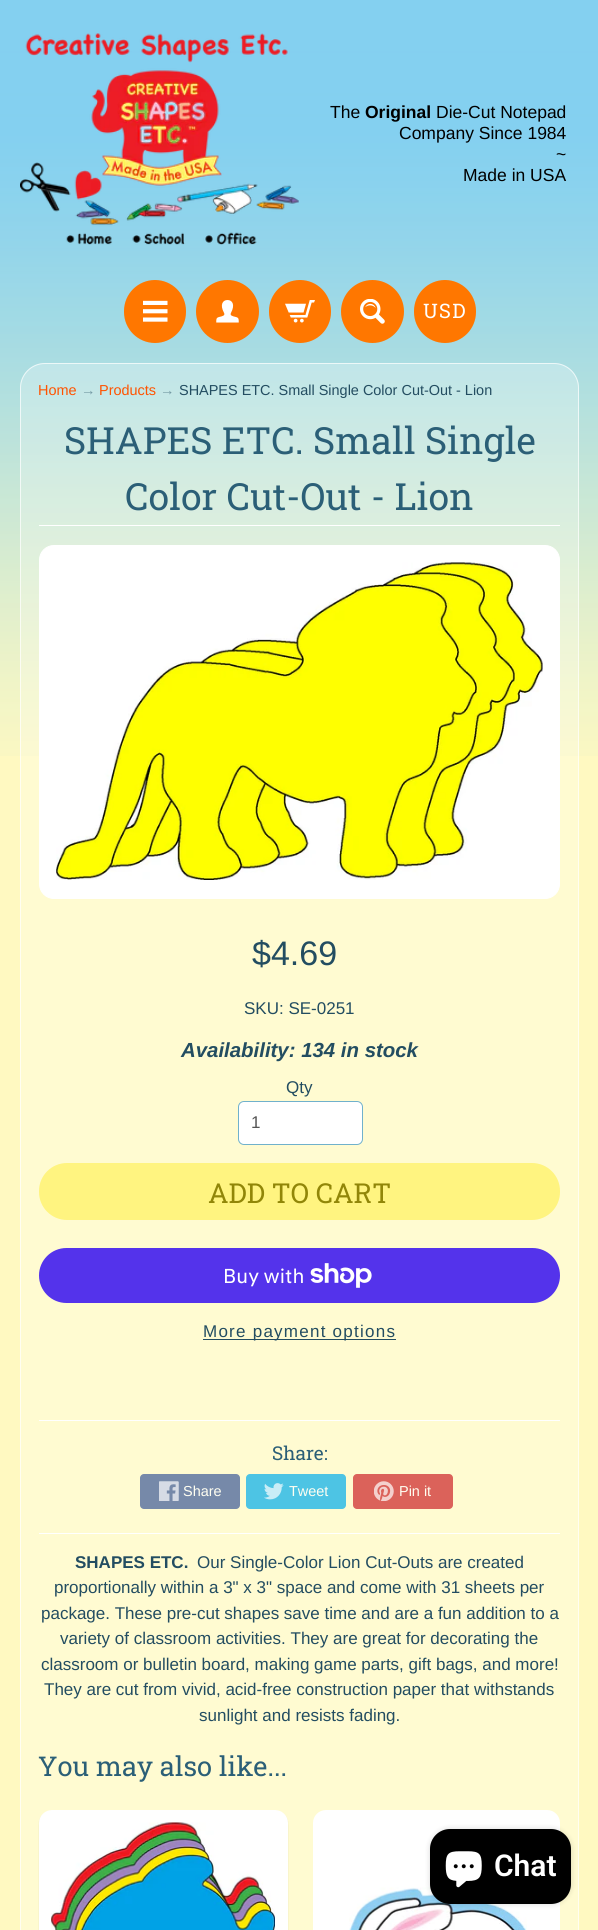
#include <cairo.h>
#include <math.h>
#include <stddef.h>


static void rgb(cairo_t *cr, int r, int g, int b)
{
	cairo_set_source_rgb(cr, r / 255.0, g / 255.0, b / 255.0);
}

static void face(cairo_t *cr, const char *family, double size, int italic, int bold)
{
	cairo_select_font_face(cr, family, italic ? CAIRO_FONT_SLANT_ITALIC : CAIRO_FONT_SLANT_NORMAL,
		bold ? CAIRO_FONT_WEIGHT_BOLD : CAIRO_FONT_WEIGHT_NORMAL);
	cairo_set_font_size(cr, size);
}

static void label(cairo_t *cr, double x, double y, const char *s)
{
	cairo_move_to(cr, x, y);
	cairo_show_text(cr, s);
}

static void tracked(cairo_t *cr, double x, double y, const char *s, double letter, double word)
{
	cairo_move_to(cr, x, y);
	while (*s) {
		char ch[5] = {0};
		int n = 0;
		do ch[n++] = *s++; while ((*s & 0xC0) == 0x80);
		cairo_show_text(cr, ch);
		cairo_rel_move_to(cr, letter + word * (*ch == ' '), 0);
	}
}

static void rect(cairo_t *cr, double x, double y, double w, double h)
{
	cairo_rectangle(cr, x, y, w, h);
	cairo_fill(cr);
}

static void rrect(cairo_t *cr, double x, double y, double w, double h, double r)
{
	cairo_new_sub_path(cr);
	cairo_arc(cr, x + w - r, y + h - r, r, 0, M_PI / 2);
	cairo_arc(cr, x + r, y + h - r, r, M_PI / 2, M_PI);
	cairo_arc(cr, x + r, y + r, r, M_PI, 1.5 * M_PI);
	cairo_arc(cr, x + w - r, y + r, r, 1.5 * M_PI, 2 * M_PI);
	cairo_close_path(cr);
}

static void soft_shadow(cairo_t *cr, double x, double y, double w, double h, double r, double blur, double alpha)
{
	cairo_push_group_with_content(cr, CAIRO_CONTENT_ALPHA);
	cairo_set_operator(cr, CAIRO_OPERATOR_SOURCE);
	for (int i = 15; i >= -15 && fmin(w, h) + blur * i / 3 > 0; i -= 2) {
		double e = blur * i / 6;
		cairo_set_source_rgba(cr, 0, 0, 0, alpha * erfc((i - 1) / 8.5) / 2);
		rrect(cr, x - e, y - e, w + 2 * e, h + 2 * e, fmax(0, fmin(r + e + blur * .6, fmin(w, h) / 2 + e)));
		cairo_fill(cr);
	}
	cairo_pattern_t *soft = cairo_pop_group(cr);
	cairo_mask(cr, soft);
	cairo_pattern_destroy(soft);
}

static void image(cairo_t *cr, const char *path, double x, double y, double w, double h)
{
	cairo_surface_t *image = cairo_image_surface_create_from_png(path);
	cairo_save(cr);
	cairo_set_source_surface(cr, image, x, y);
	cairo_rectangle(cr, x, y, w, h);
	cairo_fill(cr);
	cairo_restore(cr);
	cairo_surface_destroy(image);
}

static void draw(cairo_t *cr) {
	rgb(cr, 255, 249, 193);
	cairo_paint(cr);
	image(cr, "image0.png", 0, 0, 598, 756);
	image(cr, "image1.png", 20, 33, 279, 212);
	face(cr, "Arimo", 17.5, 0, 0);
	rgb(cr, 0, 0, 0);
	label(cr, 330, 118, "The");
	face(cr, "Arimo", 17.5, 0, 1);
	label(cr, 365, 118, "Original");
	face(cr, "Arimo", 17.5, 0, 0);
	label(cr, 436, 118, "Die-Cut Notepad");
	label(cr, 399, 139, "Company Since 1984");
	label(cr, 556, 160, "~");
	label(cr, 463, 181, "Made in USA");
	rgb(cr, 255, 119, 0);
	rrect(cr, 126, 282, 58, 59, 29);
	cairo_fill_preserve(cr);
	cairo_set_line_width(cr, 4);
	cairo_stroke(cr);
	image(cr, "image2.png", 143, 300, 25, 22);
	cairo_arc(cr, 227.5, 311.5, 29.5, 0, 2 * M_PI);
	cairo_fill_preserve(cr);
	cairo_stroke(cr);
	image(cr, "image3.png", 216, 300, 23, 23);
	rrect(cr, 271, 282, 58, 59, 29);
	cairo_fill_preserve(cr);
	cairo_stroke(cr);
	image(cr, "image4.png", 285, 300, 30, 23);
	cairo_arc(cr, 372.5, 311.5, 29.5, 0, 2 * M_PI);
	cairo_fill_preserve(cr);
	cairo_stroke(cr);
	image(cr, "image5.png", 360, 299, 25, 25);
	rrect(cr, 416, 282, 58, 59, 29);
	cairo_fill_preserve(cr);
	cairo_stroke(cr);
	face(cr, "Roboto Slab", 20, 0, 0);
	rgb(cr, 255, 255, 255);
	tracked(cr, 423, 318, "USD", 1.25, 0);
	cairo_set_source_rgba(cr, 1, 1, 1, 0.25);
	rrect(cr, 20, 363, 559, 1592, 25);
	cairo_fill(cr);
	rrect(cr, 20.5, 363.5, 558, 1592, 24.5);
	cairo_set_source_rgba(cr, 1, 1, 1, 0.7);
	cairo_set_line_width(cr, 1);
	cairo_stroke(cr);
	face(cr, "Arimo", 14.45, 0, 0);
	rgb(cr, 255, 83, 0);
	label(cr, 38, 395, "Home");
	face(cr, "Liberation Sans", 14.45, 0, 0);
	rgb(cr, 116, 154, 164);
	label(cr, 81, 395, "→");
	face(cr, "Arimo", 14.45, 0, 0);
	rgb(cr, 255, 83, 0);
	label(cr, 99, 395, "Products");
	face(cr, "Liberation Sans", 14.45, 0, 0);
	rgb(cr, 116, 154, 164);
	label(cr, 160, 395, "→");
	face(cr, "Arimo", 14.45, 0, 0);
	rgb(cr, 35, 77, 97);
	label(cr, 179, 395, "SHAPES ETC. Small Single Color Cut-Out - Lion");
	rgb(cr, 255, 255, 255);
	rect(cr, 39, 525, 521, 1);
	face(cr, "Roboto Slab", 37.4, 0, 0);
	rgb(cr, 43, 95, 119);
	label(cr, 64, 454, "SHAPES ETC. Small Single");
	label(cr, 125, 510, "Color Cut-Out - Lion");
	rgb(cr, 255, 255, 255);
	rrect(cr, 39.5, 545.5, 520, 353, 14.5);
	cairo_fill_preserve(cr);
	cairo_stroke(cr);
	image(cr, "image6.png", 56, 562, 487, 318);
	face(cr, "Arimo", 34, 0, 0);
	rgb(cr, 35, 77, 97);
	label(cr, 252, 965, "$4.69");
	face(cr, "Arimo", 17, 0, 0);
	label(cr, 244, 1014, "SKU: SE-0251");
	face(cr, "Arimo", 20.4, 1, 1);
	label(cr, 181, 1057, "Availability: 134 in stock");
	face(cr, "Arimo", 17, 0, 0);
	label(cr, 286, 1093, "Qty");
	rgb(cr, 255, 255, 255);
	rrect(cr, 238.5, 1101.5, 124, 43, 5.5);
	cairo_fill_preserve(cr);
	rgb(cr, 112, 177, 204);
	cairo_stroke(cr);
	rgb(cr, 85, 85, 85);
	label(cr, 251, 1128, "1");
	rgb(cr, 255, 244, 128);
	rrect(cr, 39, 1163, 521, 57, 28);
	cairo_fill(cr);
	face(cr, "Roboto Slab", 27.5, 0, 0);
	rgb(cr, 145, 134, 8);
	label(cr, 208, 1203, "ADD TO CART");
	rgb(cr, 84, 51, 235);
	rrect(cr, 39, 1248, 521, 55, 27.5);
	cairo_fill(cr);
	face(cr, "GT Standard", 20, 0, 0);
	rgb(cr, 255, 255, 255);
	label(cr, 223, 1283, "Buy with");
	image(cr, "image7.png", 310, 1263, 62, 25);
	rgb(cr, 35, 77, 97);
	rect(cr, 203, 1339, 193, 1);
	face(cr, "Arimo", 17, 0, 0);
	tracked(cr, 203, 1337, "More payment options", 1.25, 0);
	rgb(cr, 255, 255, 255);
	rect(cr, 39, 1420, 521, 1);
	face(cr, "Roboto Slab", 19, 0, 0);
	rgb(cr, 43, 95, 119);
	label(cr, 272, 1460, "Share:");
	rgb(cr, 118, 137, 169);
	rrect(cr, 140, 1474, 100, 35, 4);
	cairo_fill(cr);
	image(cr, "image8.png", 159, 1481, 20, 20);
	face(cr, "Arimo", 14.45, 0, 0);
	rgb(cr, 255, 254, 241);
	label(cr, 183, 1496, "Share");
	rgb(cr, 77, 196, 228);
	rrect(cr, 246, 1474, 100, 35, 4);
	cairo_fill(cr);
	image(cr, "image9.png", 264, 1483, 20, 17);
	rgb(cr, 255, 254, 241);
	label(cr, 289, 1496, "Tweet");
	rgb(cr, 219, 98, 90);
	rrect(cr, 353, 1474, 100, 35, 4);
	cairo_fill(cr);
	image(cr, "image10.png", 374, 1481, 20, 20);
	rgb(cr, 255, 254, 241);
	label(cr, 399, 1496, "Pin it");
	rgb(cr, 255, 255, 255);
	rect(cr, 39, 1533, 521, 1);
	face(cr, "Arimo", 17, 0, 1);
	rgb(cr, 35, 77, 97);
	label(cr, 75, 1568, "SHAPES ETC.");
	face(cr, "Arimo", 17, 0, 0);
	label(cr, 197, 1568, "Our Single-Color Lion Cut-Outs are created");
	label(cr, 54, 1593, "proportionally within a 3\" x 3\" space and come with 31 sheets per");
	label(cr, 41, 1619, "package. These pre-cut shapes save time and are a fun addition to a");
	label(cr, 60, 1644, "variety of classroom activities. They are great for decorating the");
	label(cr, 41, 1670, "classroom or bulletin board, making game parts, gift bags, and more!");
	label(cr, 44, 1695, "They are cut from vivid, acid-free construction paper that withstands");
	label(cr, 199, 1721, "sunlight and resists fading.");
	face(cr, "Roboto Slab", 27.25, 0, 0);
	rgb(cr, 43, 95, 119);
	label(cr, 38, 1776, "You may also like...");
	rgb(cr, 0, 0, 0);
	soft_shadow(cr, 39, 1811, 249, 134, 13, 0.5, 0.1);
	rgb(cr, 255, 255, 255);
	rrect(cr, 39, 1810, 249, 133, 13);
	cairo_fill(cr);
	image(cr, "image11.png", 51, 1822, 224, 108);
	rrect(cr, 313, 1810, 247, 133, 13);
	cairo_fill(cr);
	image(cr, "image12.png", 349, 1887, 178, 43);
	rgb(cr, 0, 0, 0);
	soft_shadow(cr, 430, 1829, 141, 75, 20, 3, 0.15);
	rgb(cr, 0, 0, 0);
	rrect(cr, 430, 1829, 141, 75, 20);
	cairo_fill(cr);
	image(cr, "image13.png", 445, 1851, 37, 37);
	face(cr, "Roboto SemiBold", 30, 0, 0);
	rgb(cr, 255, 255, 255);
	label(cr, 494, 1876, "Chat");
}

int main(void) {
	cairo_surface_t *surface = cairo_image_surface_create(CAIRO_FORMAT_RGB24, 598, 1930);
	cairo_t *cr = cairo_create(surface);
	cairo_font_options_t *options = cairo_font_options_create();
	cairo_font_options_set_hint_metrics(options, CAIRO_HINT_METRICS_OFF);
	cairo_font_options_set_hint_style(options, CAIRO_HINT_STYLE_NONE);
	cairo_set_font_options(cr, options);
	cairo_set_miter_limit(cr, 4);
	draw(cr);
	cairo_surface_write_to_png(surface, "render.png");
	cairo_font_options_destroy(options);
	cairo_destroy(cr);
	cairo_surface_destroy(surface);
	return 0;
}
